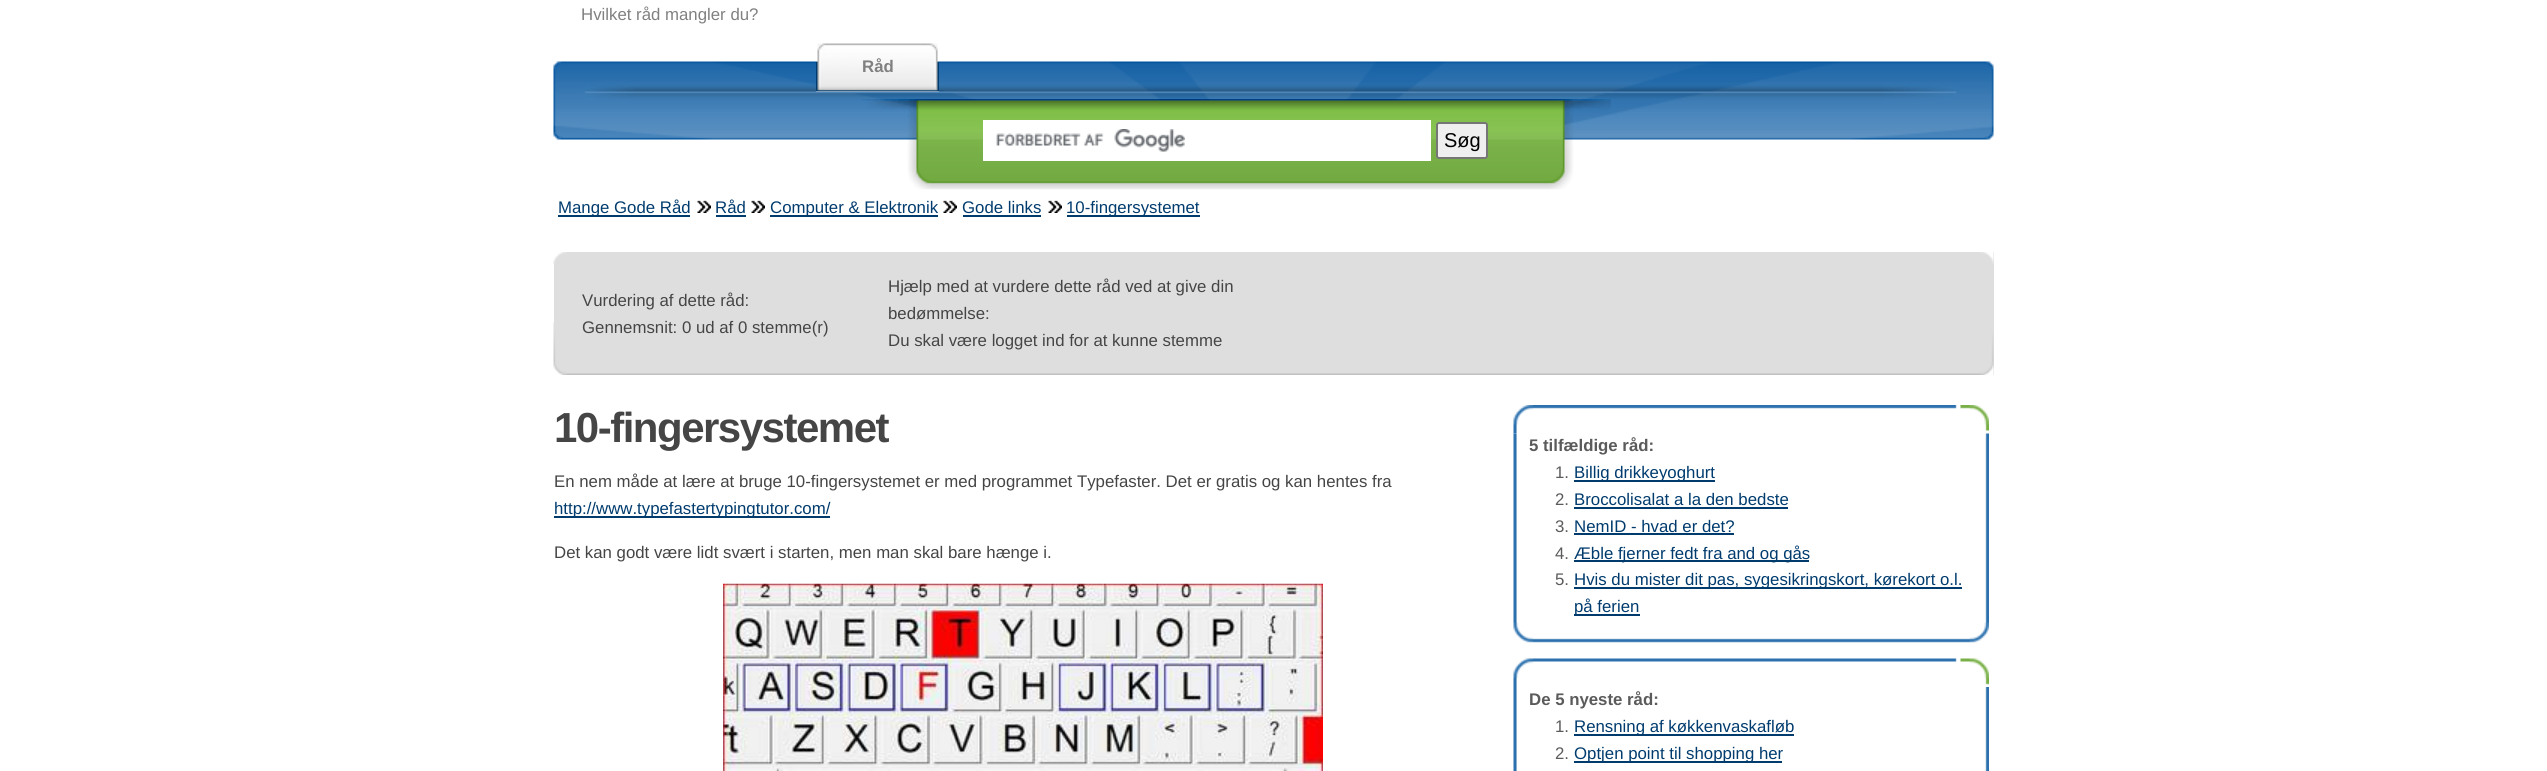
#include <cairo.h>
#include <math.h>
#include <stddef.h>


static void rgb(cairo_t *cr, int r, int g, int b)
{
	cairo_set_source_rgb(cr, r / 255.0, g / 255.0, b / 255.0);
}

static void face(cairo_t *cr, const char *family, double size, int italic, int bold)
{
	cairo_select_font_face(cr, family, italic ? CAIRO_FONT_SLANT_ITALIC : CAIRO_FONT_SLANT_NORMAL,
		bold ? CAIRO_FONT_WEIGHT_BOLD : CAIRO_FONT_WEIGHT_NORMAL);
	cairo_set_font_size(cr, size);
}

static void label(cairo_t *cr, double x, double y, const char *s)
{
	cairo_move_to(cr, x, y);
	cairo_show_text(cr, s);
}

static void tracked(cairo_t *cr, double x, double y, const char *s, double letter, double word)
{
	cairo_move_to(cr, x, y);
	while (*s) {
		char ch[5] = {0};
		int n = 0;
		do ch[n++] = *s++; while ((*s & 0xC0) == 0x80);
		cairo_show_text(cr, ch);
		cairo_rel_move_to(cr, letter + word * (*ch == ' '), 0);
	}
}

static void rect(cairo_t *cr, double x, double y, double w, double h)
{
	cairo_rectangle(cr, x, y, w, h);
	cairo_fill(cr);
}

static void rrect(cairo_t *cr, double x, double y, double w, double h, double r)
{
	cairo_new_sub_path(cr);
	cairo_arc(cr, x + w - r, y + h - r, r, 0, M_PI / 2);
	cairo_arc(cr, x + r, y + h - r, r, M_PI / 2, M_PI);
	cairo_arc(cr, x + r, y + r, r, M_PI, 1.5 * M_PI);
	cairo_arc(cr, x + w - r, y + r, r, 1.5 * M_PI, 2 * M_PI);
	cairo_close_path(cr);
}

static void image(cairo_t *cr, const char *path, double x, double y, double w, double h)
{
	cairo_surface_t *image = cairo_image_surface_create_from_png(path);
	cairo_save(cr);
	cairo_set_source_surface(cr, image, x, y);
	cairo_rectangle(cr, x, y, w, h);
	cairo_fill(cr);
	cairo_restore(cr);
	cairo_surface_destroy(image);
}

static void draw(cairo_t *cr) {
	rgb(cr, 255, 255, 255);
	cairo_paint(cr);
	face(cr, "Liberation Sans", 16.8, 0, 0);
	rgb(cr, 128, 128, 128);
	label(cr, 581, 20, "Hvilket råd mangler du?");
	image(cr, "image0.png", 553, 61, 1441, 79);
	rgb(cr, 255, 255, 255);
	rect(cr, 816, 91, 123, 1);
	image(cr, "image1.png", 816, 43, 123, 49);
	face(cr, "Liberation Sans", 16.8, 0, 1);
	rgb(cr, 128, 128, 128);
	label(cr, 862, 72, "Råd");
	rgb(cr, 0, 59, 110);
	rect(cr, 558, 215, 132, 2);
	face(cr, "Liberation Sans", 16.8, 0, 0);
	label(cr, 558, 213, "Mange Gode Råd");
	image(cr, "image2.png", 697, 200, 14, 13);
	label(cr, 715, 213, "Råd");
	rect(cr, 716, 215, 30, 2);
	image(cr, "image3.png", 751, 200, 14, 13);
	rect(cr, 770, 215, 168, 2);
	label(cr, 770, 213, "Computer & Elektronik");
	image(cr, "image2.png", 943, 200, 14, 13);
	label(cr, 962, 213, "Gode links");
	rect(cr, 963, 215, 78, 2);
	image(cr, "image3.png", 1048, 200, 14, 13);
	rect(cr, 1067, 215, 133, 2);
	label(cr, 1066, 213, "10-fingersystemet");
	rgb(cr, 222, 222, 222);
	rect(cr, 1993, 252, 1, 12);
	image(cr, "image4.png", 553, 252, 1441, 12);
	rect(cr, 554, 264, 1440, 111);
	image(cr, "image5.png", 553, 322, 1441, 53);
	rgb(cr, 69, 69, 69);
	label(cr, 582, 306, "Vurdering af dette råd:");
	label(cr, 582, 333, "Gennemsnit: 0 ud af 0 stemme(r)");
	label(cr, 888, 292, "Hjælp med at vurdere dette råd ved at give din");
	label(cr, 888, 319, "bedømmelse:");
	label(cr, 888, 346, "Du skal være logget ind for at kunne stemme");
	face(cr, "Liberation Sans", 42, 0, 1);
	tracked(cr, 554, 442, "10-fingersystemet", -1.5, 0);
	face(cr, "Liberation Sans", 16.8, 0, 0);
	label(cr, 554, 487, "En nem måde at lære at bruge 10-fingersystemet er med programmet Typefaster. Det er gratis og kan hentes fra");
	rgb(cr, 0, 59, 110);
	rect(cr, 554, 516, 276, 2);
	label(cr, 554, 514, "http://www.typefastertypingtutor.com/");
	rgb(cr, 69, 69, 69);
	label(cr, 554, 558, "Det kan godt være lidt svært i starten, men man skal bare hænge i.");
	image(cr, "image6.png", 723, 583, 600, 188);
	image(cr, "image7.png", 1513, 405, 476, 29);
	image(cr, "image8.png", 1513, 433, 476, 210);
	face(cr, "Liberation Sans", 16.8, 0, 1);
	rgb(cr, 91, 91, 91);
	label(cr, 1529, 451, "5 tilfældige råd:");
	face(cr, "Liberation Sans", 16.8, 0, 0);
	label(cr, 1555, 478, "1.");
	rgb(cr, 0, 59, 110);
	rect(cr, 1574, 480, 141, 2);
	label(cr, 1574, 478, "Billig drikkeyoghurt");
	rgb(cr, 91, 91, 91);
	label(cr, 1555, 505, "2.");
	rgb(cr, 0, 59, 110);
	label(cr, 1574, 505, "Broccolisalat a la den bedste");
	rect(cr, 1574, 507, 214, 2);
	rgb(cr, 91, 91, 91);
	label(cr, 1555, 532, "3.");
	rgb(cr, 0, 59, 110);
	label(cr, 1574, 532, "NemID - hvad er det?");
	rect(cr, 1574, 533, 160, 2);
	rgb(cr, 91, 91, 91);
	label(cr, 1555, 559, "4.");
	rgb(cr, 0, 59, 110);
	rect(cr, 1574, 560, 235, 2);
	label(cr, 1574, 559, "Æble fjerner fedt fra and og gås");
	rgb(cr, 91, 91, 91);
	label(cr, 1555, 585, "5.");
	rgb(cr, 0, 59, 110);
	rect(cr, 1574, 587, 388, 2);
	label(cr, 1574, 585, "Hvis du mister dit pas, sygesikringskort, kørekort o.l.");
	rect(cr, 1574, 614, 66, 2);
	label(cr, 1574, 612, "på ferien");
	image(cr, "image9.png", 1513, 658, 476, 29);
	image(cr, "image10.png", 1513, 687, 476, 84);
	face(cr, "Liberation Sans", 16.8, 0, 1);
	rgb(cr, 91, 91, 91);
	label(cr, 1529, 705, "De 5 nyeste råd:");
	face(cr, "Liberation Sans", 16.8, 0, 0);
	label(cr, 1555, 732, "1.");
	rgb(cr, 0, 59, 110);
	rect(cr, 1574, 734, 220, 2);
	label(cr, 1574, 732, "Rensning af køkkenvaskafløb");
	rgb(cr, 91, 91, 91);
	label(cr, 1555, 759, "2.");
	rgb(cr, 0, 59, 110);
	rect(cr, 1574, 761, 208, 2);
	label(cr, 1574, 759, "Optjen point til shopping her");
	image(cr, "image11.png", 861, 99, 750, 91);
	rgb(cr, 255, 255, 255);
	rect(cr, 983, 120, 448, 41);
	image(cr, "image12.png", 996, 129, 189, 23);
	rgb(cr, 239, 239, 239);
	rrect(cr, 1437, 123, 50, 35, 2);
	cairo_fill_preserve(cr);
	rgb(cr, 118, 118, 118);
	cairo_stroke(cr);
	face(cr, "Liberation Sans", 20, 0, 0);
	rgb(cr, 0, 0, 0);
	label(cr, 1444, 147, "Søg");
}

int main(void) {
	cairo_surface_t *surface = cairo_image_surface_create(CAIRO_FORMAT_RGB24, 2547, 771);
	cairo_t *cr = cairo_create(surface);
	cairo_font_options_t *options = cairo_font_options_create();
	cairo_font_options_set_hint_metrics(options, CAIRO_HINT_METRICS_OFF);
	cairo_font_options_set_hint_style(options, CAIRO_HINT_STYLE_NONE);
	cairo_set_font_options(cr, options);
	cairo_set_miter_limit(cr, 4);
	draw(cr);
	cairo_surface_write_to_png(surface, "render.png");
	cairo_font_options_destroy(options);
	cairo_destroy(cr);
	cairo_surface_destroy(surface);
	return 0;
}
